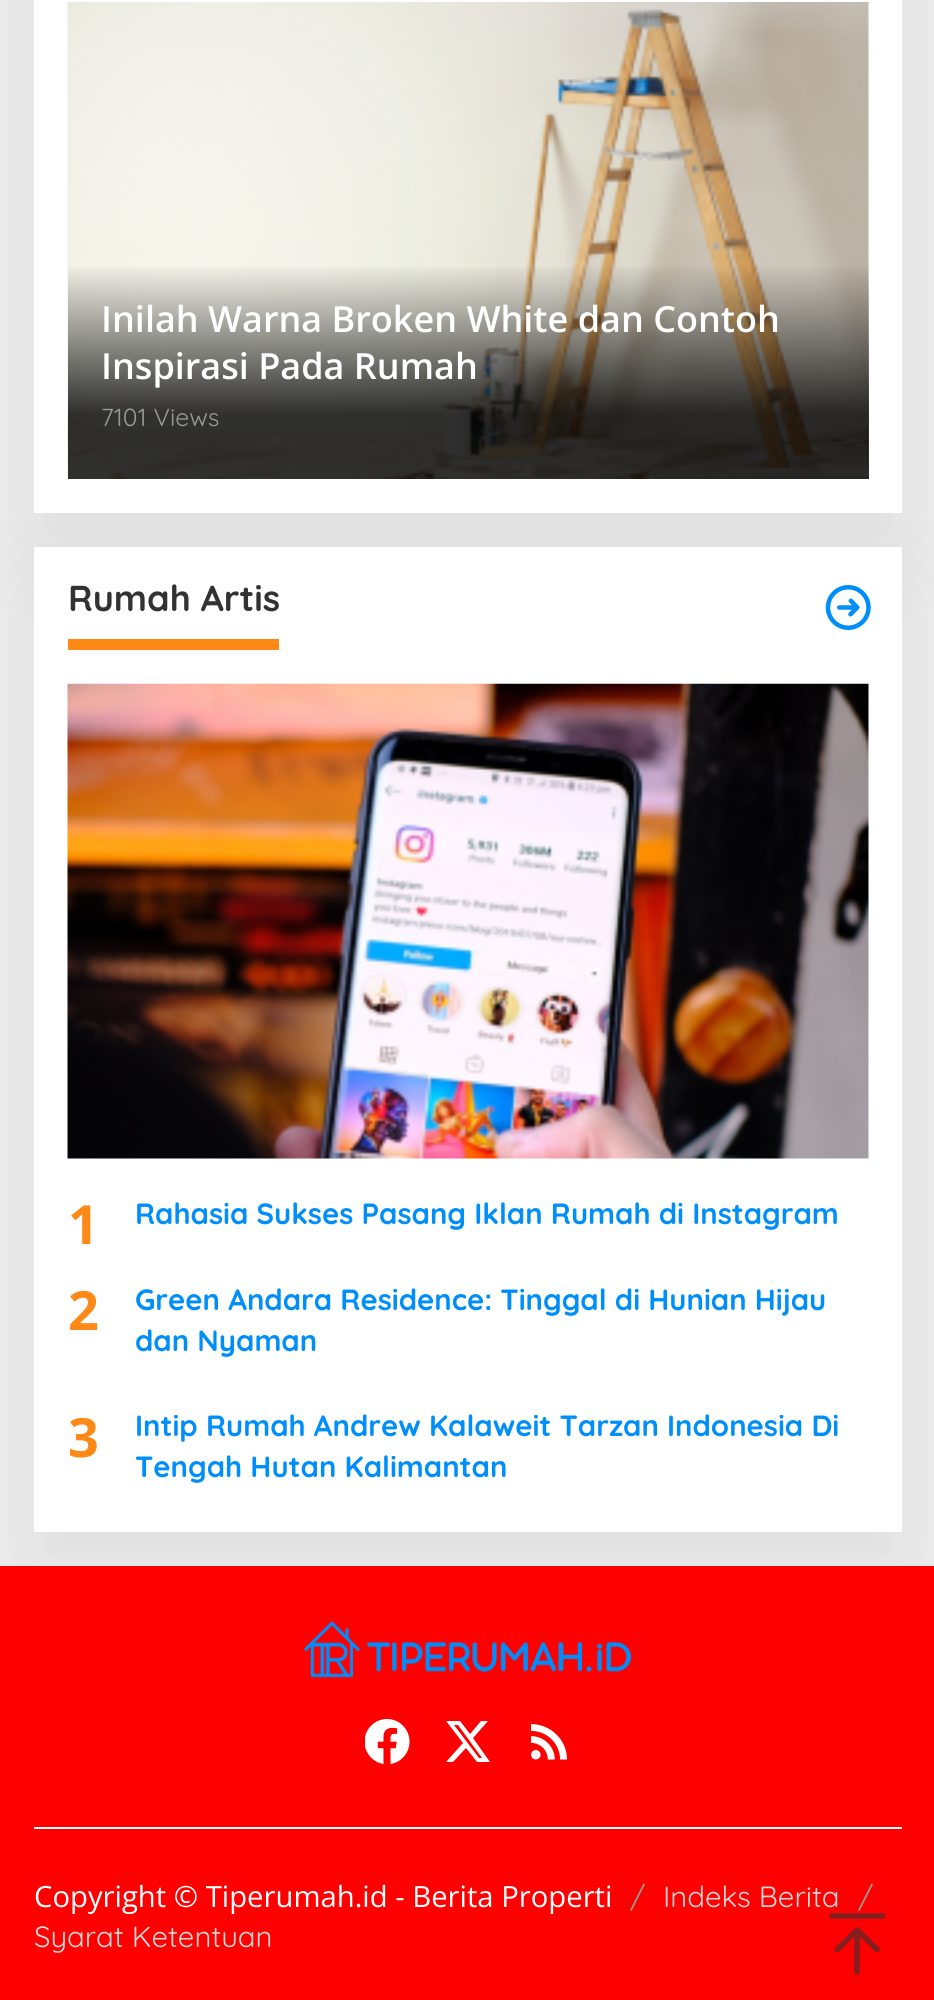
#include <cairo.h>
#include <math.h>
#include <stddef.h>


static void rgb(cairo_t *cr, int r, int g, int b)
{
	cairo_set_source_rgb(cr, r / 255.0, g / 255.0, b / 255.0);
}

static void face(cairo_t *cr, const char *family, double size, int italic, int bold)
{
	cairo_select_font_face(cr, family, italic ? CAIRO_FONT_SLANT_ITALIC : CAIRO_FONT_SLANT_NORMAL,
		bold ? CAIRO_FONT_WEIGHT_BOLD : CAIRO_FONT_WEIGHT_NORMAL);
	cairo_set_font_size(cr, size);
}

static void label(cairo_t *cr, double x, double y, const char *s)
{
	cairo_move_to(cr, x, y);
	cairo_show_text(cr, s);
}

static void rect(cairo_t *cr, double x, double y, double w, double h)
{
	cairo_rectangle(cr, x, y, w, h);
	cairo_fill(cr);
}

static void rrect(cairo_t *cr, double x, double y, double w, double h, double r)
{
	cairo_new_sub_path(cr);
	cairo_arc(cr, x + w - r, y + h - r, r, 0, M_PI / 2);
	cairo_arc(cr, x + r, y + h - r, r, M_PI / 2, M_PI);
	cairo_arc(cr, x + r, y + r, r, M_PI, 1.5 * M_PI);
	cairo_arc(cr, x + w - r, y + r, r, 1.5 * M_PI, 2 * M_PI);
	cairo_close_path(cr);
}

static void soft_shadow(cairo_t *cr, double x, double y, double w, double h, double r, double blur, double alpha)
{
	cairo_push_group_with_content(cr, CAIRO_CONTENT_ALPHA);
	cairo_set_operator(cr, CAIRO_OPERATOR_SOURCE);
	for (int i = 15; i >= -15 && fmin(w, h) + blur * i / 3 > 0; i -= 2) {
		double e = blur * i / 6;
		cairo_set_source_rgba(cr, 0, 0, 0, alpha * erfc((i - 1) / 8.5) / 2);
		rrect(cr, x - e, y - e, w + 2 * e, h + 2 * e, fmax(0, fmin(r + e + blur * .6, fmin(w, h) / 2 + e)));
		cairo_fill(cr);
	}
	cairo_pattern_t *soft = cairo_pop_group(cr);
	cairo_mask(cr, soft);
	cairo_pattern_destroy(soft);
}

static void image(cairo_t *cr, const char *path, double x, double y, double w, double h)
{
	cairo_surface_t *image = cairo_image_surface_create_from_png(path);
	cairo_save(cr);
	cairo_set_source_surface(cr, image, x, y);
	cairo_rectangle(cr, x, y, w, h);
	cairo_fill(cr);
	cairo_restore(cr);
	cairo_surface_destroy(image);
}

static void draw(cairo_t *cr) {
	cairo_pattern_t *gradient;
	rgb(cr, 238, 238, 238);
	cairo_paint(cr);
	rgb(cr, 0, 0, 0);
	soft_shadow(cr, 34, -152, 868, 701, 0, 50.5, 0.07);
	rgb(cr, 255, 255, 255);
	rect(cr, 34, 0, 868, 513);
	rgb(cr, 0, 0, 0);
	soft_shadow(cr, 34, 583, 868, 985, 0, 50.5, 0.07);
	image(cr, "image0.png", 67, 2, 802, 477);
	gradient = cairo_pattern_create_linear(468, 263, 468, 479);
	cairo_pattern_add_color_stop_rgba(gradient, 0, 0, 0, 0, 0);
	cairo_pattern_add_color_stop_rgba(gradient, 0.7, 0, 0, 0, 0.8);
	cairo_set_source(cr, gradient);
	cairo_pattern_destroy(gradient);
	rect(cr, 68, 267, 801, 212);
	face(cr, "Open Sans SemiBold", 36, 0, 0);
	rgb(cr, 255, 255, 255);
	label(cr, 101, 332, "Inilah Warna Broken White dan Contoh");
	label(cr, 101, 379, "Inspirasi Pada Rumah");
	face(cr, "Quicksand", 24.75, 0, 0);
	rgb(cr, 153, 153, 153);
	label(cr, 101, 426, "7101 Views");
	rgb(cr, 255, 255, 255);
	rect(cr, 34, 547, 868, 985);
	rgb(cr, 254, 137, 23);
	rect(cr, 68, 639, 211, 11);
	face(cr, "Quicksand", 36, 0, 1);
	rgb(cr, 50, 50, 51);
	label(cr, 68, 611, "Rumah Artis");
	image(cr, "image1.png", 825, 585, 46, 45);
	image(cr, "image2.png", 67, 683, 802, 476);
	face(cr, "Open Sans", 54, 0, 1);
	rgb(cr, 254, 137, 23);
	label(cr, 68, 1244, "1");
	face(cr, "Quicksand", 29.25, 0, 1);
	rgb(cr, 0, 142, 251);
	label(cr, 135, 1224, "Rahasia Sukses Pasang Iklan Rumah di Instagram");
	face(cr, "Open Sans", 54, 0, 1);
	rgb(cr, 254, 137, 23);
	label(cr, 68, 1330, "2");
	face(cr, "Quicksand", 29.25, 0, 1);
	rgb(cr, 0, 142, 251);
	label(cr, 135, 1310, "Green Andara Residence: Tinggal di Hunian Hijau");
	label(cr, 135, 1351, "dan Nyaman");
	face(cr, "Open Sans", 54, 0, 1);
	rgb(cr, 254, 137, 23);
	label(cr, 68, 1457, "3");
	face(cr, "Quicksand", 29.25, 0, 1);
	rgb(cr, 0, 142, 251);
	label(cr, 135, 1436, "Intip Rumah Andrew Kalaweit Tarzan Indonesia Di");
	label(cr, 135, 1477, "Tengah Hutan Kalimantan");
	rgb(cr, 255, 0, 0);
	rect(cr, 0, 1566, 934, 434);
	rgb(cr, 255, 255, 255);
	rect(cr, 34, 1827, 868, 2);
	image(cr, "image3.png", 304, 1621, 328, 57);
	image(cr, "image4.png", 365, 1719, 45, 45);
	cairo_new_path(cr);
	cairo_move_to(cr, 481, 1721);
	cairo_line_to(cr, 488, 1721);
	cairo_line_to(cr, 473, 1738);
	cairo_line_to(cr, 490, 1762);
	cairo_line_to(cr, 477, 1762);
	cairo_line_to(cr, 466, 1748);
	cairo_line_to(cr, 453, 1762);
	cairo_line_to(cr, 446, 1762);
	cairo_line_to(cr, 463, 1743);
	cairo_line_to(cr, 446, 1721);
	cairo_line_to(cr, 460, 1721);
	cairo_line_to(cr, 470, 1734);
	cairo_close_path(cr);
	cairo_move_to(cr, 479, 1758);
	cairo_line_to(cr, 482, 1758);
	cairo_line_to(cr, 458, 1725);
	cairo_line_to(cr, 454, 1725);
	cairo_close_path(cr);
	cairo_fill(cr);
	image(cr, "image5.png", 531, 1724, 36, 36);
	face(cr, "Quicksand", 29.25, 0, 0);
	rgb(cr, 153, 153, 153);
	label(cr, 630, 1907, "/");
	rgb(cr, 215, 215, 215);
	label(cr, 663, 1907, "Indeks Berita");
	rgb(cr, 153, 153, 153);
	label(cr, 858, 1907, "/");
	rgb(cr, 215, 215, 215);
	label(cr, 34, 1947, "Syarat Ketentuan");
	face(cr, "Open Sans", 29.25, 0, 0);
	rgb(cr, 255, 255, 255);
	label(cr, 34, 1907, "Copyright © Tiperumah.id - Berita Properti");
	cairo_new_path(cr);
	cairo_move_to(cr, 857, 1972);
	cairo_line_to(cr, 857, 1930);
	cairo_move_to(cr, 837.5, 1949.5);
	cairo_line_to(cr, 857, 1930);
	cairo_line_to(cr, 877, 1949.5);
	cairo_move_to(cr, 832, 1916);
	cairo_line_to(cr, 882.5, 1916);
	rgb(cr, 132, 30, 31);
	cairo_set_line_width(cr, 5.6);
	cairo_set_line_cap(cr, CAIRO_LINE_CAP_ROUND);
	cairo_set_line_join(cr, CAIRO_LINE_JOIN_ROUND);
	cairo_stroke(cr);
}

int main(void) {
	cairo_surface_t *surface = cairo_image_surface_create(CAIRO_FORMAT_RGB24, 934, 2000);
	cairo_t *cr = cairo_create(surface);
	cairo_font_options_t *options = cairo_font_options_create();
	cairo_font_options_set_hint_metrics(options, CAIRO_HINT_METRICS_OFF);
	cairo_font_options_set_hint_style(options, CAIRO_HINT_STYLE_NONE);
	cairo_set_font_options(cr, options);
	cairo_set_miter_limit(cr, 4);
	draw(cr);
	cairo_surface_write_to_png(surface, "render.png");
	cairo_font_options_destroy(options);
	cairo_destroy(cr);
	cairo_surface_destroy(surface);
	return 0;
}
